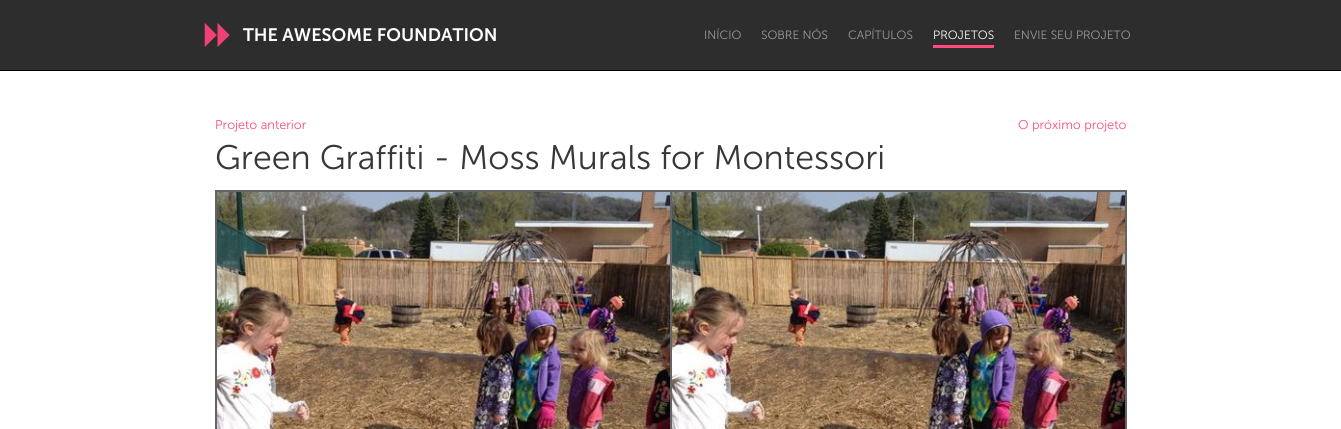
#include <cairo.h>
#include <math.h>
#include <stddef.h>


static void rgb(cairo_t *cr, int r, int g, int b)
{
	cairo_set_source_rgb(cr, r / 255.0, g / 255.0, b / 255.0);
}

static void face(cairo_t *cr, const char *family, double size, int italic, int bold)
{
	cairo_select_font_face(cr, family, italic ? CAIRO_FONT_SLANT_ITALIC : CAIRO_FONT_SLANT_NORMAL,
		bold ? CAIRO_FONT_WEIGHT_BOLD : CAIRO_FONT_WEIGHT_NORMAL);
	cairo_set_font_size(cr, size);
}

static void label(cairo_t *cr, double x, double y, const char *s)
{
	cairo_move_to(cr, x, y);
	cairo_show_text(cr, s);
}

static void rect(cairo_t *cr, double x, double y, double w, double h)
{
	cairo_rectangle(cr, x, y, w, h);
	cairo_fill(cr);
}

static void image(cairo_t *cr, const char *path, double x, double y, double w, double h)
{
	cairo_surface_t *image = cairo_image_surface_create_from_png(path);
	cairo_save(cr);
	cairo_set_source_surface(cr, image, x, y);
	cairo_rectangle(cr, x, y, w, h);
	cairo_fill(cr);
	cairo_restore(cr);
	cairo_surface_destroy(image);
}

static void draw(cairo_t *cr) {
	rgb(cr, 255, 255, 255);
	cairo_paint(cr);
	rgb(cr, 45, 45, 45);
	rect(cr, 0, 0, 1341, 70);
	rgb(cr, 0, 0, 0);
	rect(cr, 0, 70, 1341, 1);
	image(cr, "image0.png", 204, 23, 26, 24);
	face(cr, "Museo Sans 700 SemiBold", 18, 0, 0);
	rgb(cr, 255, 255, 255);
	label(cr, 243, 41, "THE AWESOME FOUNDATION");
	face(cr, "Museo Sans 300 Light", 12, 0, 0);
	rgb(cr, 155, 155, 155);
	label(cr, 704, 39, "INÍCIO");
	label(cr, 761, 39, "SOBRE NÓS");
	label(cr, 848, 39, "CAPÍTULOS");
	rgb(cr, 255, 75, 126);
	rect(cr, 933, 45, 61, 3);
	rgb(cr, 255, 255, 255);
	label(cr, 933, 39, "PROJETOS");
	rgb(cr, 155, 155, 155);
	label(cr, 1014, 39, "ENVIE SEU PROJETO");
	face(cr, "Museo Sans 300 Light", 12.75, 0, 0);
	rgb(cr, 255, 75, 126);
	label(cr, 215, 129, "Projeto anterior");
	label(cr, 1018, 129, "O próximo projeto");
	face(cr, "Museo Sans 300 Light", 34, 0, 0);
	rgb(cr, 55, 55, 55);
	label(cr, 215, 169, "Green Graffiti - Moss Murals for Montessori");
	rgb(cr, 100, 100, 100);
	rect(cr, 215, 190, 912, 239);
	image(cr, "image1.png", 217, 192, 453, 237);
	image(cr, "image1.png", 672, 192, 453, 237);
}

int main(void) {
	cairo_surface_t *surface = cairo_image_surface_create(CAIRO_FORMAT_RGB24, 1341, 429);
	cairo_t *cr = cairo_create(surface);
	cairo_font_options_t *options = cairo_font_options_create();
	cairo_font_options_set_hint_metrics(options, CAIRO_HINT_METRICS_OFF);
	cairo_font_options_set_hint_style(options, CAIRO_HINT_STYLE_NONE);
	cairo_set_font_options(cr, options);
	cairo_set_miter_limit(cr, 4);
	draw(cr);
	cairo_surface_write_to_png(surface, "render.png");
	cairo_font_options_destroy(options);
	cairo_destroy(cr);
	cairo_surface_destroy(surface);
	return 0;
}
